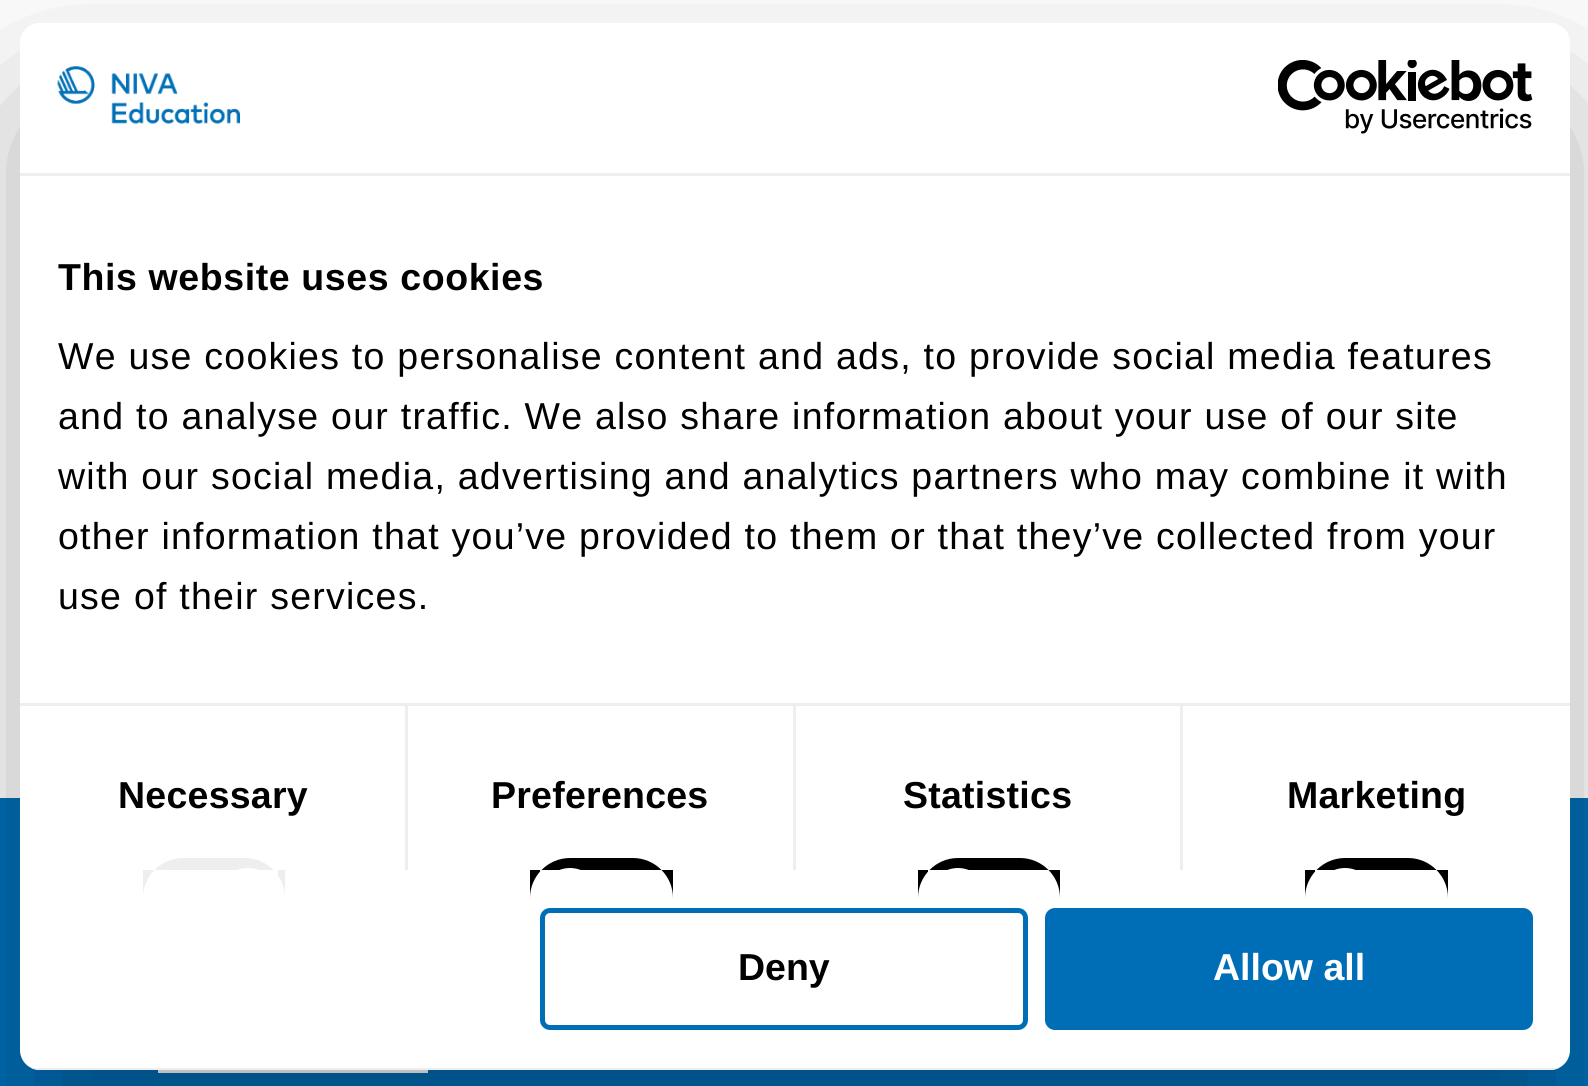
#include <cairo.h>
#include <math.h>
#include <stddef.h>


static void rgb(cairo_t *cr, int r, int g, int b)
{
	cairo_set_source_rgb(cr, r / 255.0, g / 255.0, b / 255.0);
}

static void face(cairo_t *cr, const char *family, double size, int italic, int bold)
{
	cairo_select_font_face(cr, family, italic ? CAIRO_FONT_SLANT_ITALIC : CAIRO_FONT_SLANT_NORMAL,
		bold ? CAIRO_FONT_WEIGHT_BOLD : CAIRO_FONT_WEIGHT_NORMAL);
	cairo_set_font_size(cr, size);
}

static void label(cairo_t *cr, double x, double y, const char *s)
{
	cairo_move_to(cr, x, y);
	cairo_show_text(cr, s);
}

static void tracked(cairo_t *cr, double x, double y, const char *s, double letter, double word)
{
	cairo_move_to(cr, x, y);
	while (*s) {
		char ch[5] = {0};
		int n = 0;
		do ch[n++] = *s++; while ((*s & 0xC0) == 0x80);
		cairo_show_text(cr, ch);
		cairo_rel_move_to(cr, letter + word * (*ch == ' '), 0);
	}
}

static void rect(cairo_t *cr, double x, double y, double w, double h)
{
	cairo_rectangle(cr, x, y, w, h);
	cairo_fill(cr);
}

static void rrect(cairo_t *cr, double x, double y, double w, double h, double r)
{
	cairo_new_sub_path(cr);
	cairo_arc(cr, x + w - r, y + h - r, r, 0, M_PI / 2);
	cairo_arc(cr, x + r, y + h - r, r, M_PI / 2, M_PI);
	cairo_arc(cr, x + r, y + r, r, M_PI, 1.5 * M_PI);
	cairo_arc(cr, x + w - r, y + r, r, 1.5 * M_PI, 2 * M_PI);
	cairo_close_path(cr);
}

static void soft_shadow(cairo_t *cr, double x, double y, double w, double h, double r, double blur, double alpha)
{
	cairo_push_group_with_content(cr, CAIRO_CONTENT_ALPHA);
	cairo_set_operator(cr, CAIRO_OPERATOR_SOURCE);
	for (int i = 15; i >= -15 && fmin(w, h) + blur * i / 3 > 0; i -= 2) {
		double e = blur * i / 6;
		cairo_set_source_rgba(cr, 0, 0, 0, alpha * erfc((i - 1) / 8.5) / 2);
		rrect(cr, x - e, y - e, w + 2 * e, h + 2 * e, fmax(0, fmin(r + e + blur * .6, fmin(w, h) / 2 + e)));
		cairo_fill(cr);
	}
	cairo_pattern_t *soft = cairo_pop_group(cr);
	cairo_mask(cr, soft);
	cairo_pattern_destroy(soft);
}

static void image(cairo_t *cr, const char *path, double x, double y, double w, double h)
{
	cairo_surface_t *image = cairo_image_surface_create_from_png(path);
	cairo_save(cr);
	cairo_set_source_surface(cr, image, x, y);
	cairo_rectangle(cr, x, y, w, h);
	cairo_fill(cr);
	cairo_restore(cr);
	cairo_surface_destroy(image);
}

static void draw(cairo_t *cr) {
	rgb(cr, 255, 255, 255);
	cairo_paint(cr);
	rgb(cr, 0, 110, 182);
	rect(cr, 0, 798, 1588, 288);
	rgb(cr, 255, 255, 255);
	rect(cr, 158, 1070, 270, 3);
	cairo_save(cr);
	cairo_set_fill_rule(cr, CAIRO_FILL_RULE_EVEN_ODD);
	cairo_new_path(cr);
	cairo_move_to(cr, 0, 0);
	cairo_line_to(cr, 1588, 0);
	cairo_line_to(cr, 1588, 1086);
	cairo_line_to(cr, 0, 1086);
	cairo_close_path(cr);
	cairo_move_to(cr, 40, 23);
	cairo_line_to(cr, 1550, 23);
	cairo_curve_to(cr, 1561, 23, 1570, 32, 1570, 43);
	cairo_line_to(cr, 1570, 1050);
	cairo_curve_to(cr, 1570, 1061, 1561, 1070, 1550, 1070);
	cairo_line_to(cr, 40, 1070);
	cairo_curve_to(cr, 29, 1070, 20, 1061, 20, 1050);
	cairo_line_to(cr, 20, 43);
	cairo_curve_to(cr, 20, 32, 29, 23, 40, 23);
	cairo_close_path(cr);
	cairo_clip(cr);
	rgb(cr, 0, 0, 0);
	soft_shadow(cr, 20, 103, 1550, 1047, 20, 85, 0.3);
	cairo_restore(cr);
	rrect(cr, 20, 23, 1550, 1047, 20);
	cairo_fill(cr);
	rgb(cr, 238, 238, 238);
	rect(cr, 20, 173, 1550, 3);
	image(cr, "image0.png", 57, 66, 183, 58);
	image(cr, "image1.png", 1278, 60, 255, 74);
	rect(cr, 405, 705, 3, 165);
	rect(cr, 793, 705, 3, 165);
	rect(cr, 1180, 705, 3, 165);
	rect(cr, 20, 703, 1550, 3);
	face(cr, "Liberation Sans", 37.5, 0, 1);
	rgb(cr, 0, 0, 0);
	tracked(cr, 58, 290, "This website uses cookies", 0.6, 0);
	face(cr, "Liberation Sans", 37.5, 0, 0);
	tracked(cr, 58, 369, "We use cookies to personalise content and ads, to provide social media features", 1.25, 0);
	tracked(cr, 58, 429, "and to analyse our traffic. We also share information about your use of our site", 1.25, 0);
	tracked(cr, 58, 489, "with our social media, advertising and analytics partners who may combine it with", 1.25, 0);
	tracked(cr, 58, 549, "other information that you’ve provided to them or that they’ve collected from your", 1.25, 0);
	tracked(cr, 58, 609, "use of their services.", 1.25, 0);
	face(cr, "Liberation Sans", 37.5, 0, 1);
	tracked(cr, 118, 808, "Necessary", 0.25, 0);
	rgb(cr, 238, 238, 238);
	cairo_new_path(cr);
	cairo_move_to(cr, 183, 858);
	cairo_line_to(cr, 245, 858);
	cairo_curve_to(cr, 267, 858, 285, 876, 285, 898);
	cairo_line_to(cr, 285, 870);
	cairo_line_to(cr, 143, 870);
	cairo_line_to(cr, 143, 898);
	cairo_curve_to(cr, 143, 876, 161, 858, 183, 858);
	cairo_close_path(cr);
	cairo_fill(cr);
	rgb(cr, 255, 255, 255);
	cairo_new_path(cr);
	cairo_move_to(cr, 248, 868);
	cairo_curve_to(cr, 264.5, 868, 278, 881.5, 278, 898);
	cairo_line_to(cr, 278, 870);
	cairo_line_to(cr, 218, 870);
	cairo_line_to(cr, 218, 898);
	cairo_curve_to(cr, 218, 881.5, 231.5, 868, 248, 868);
	cairo_close_path(cr);
	cairo_fill(cr);
	rgb(cr, 0, 0, 0);
	tracked(cr, 491, 808, "Preferences", 0.25, 0);
	cairo_new_path(cr);
	cairo_move_to(cr, 570, 858);
	cairo_line_to(cr, 633, 858);
	cairo_curve_to(cr, 655, 858, 673, 876, 673, 898);
	cairo_line_to(cr, 673, 870);
	cairo_line_to(cr, 530, 870);
	cairo_line_to(cr, 530, 898);
	cairo_curve_to(cr, 530, 876, 548, 858, 570, 858);
	cairo_close_path(cr);
	cairo_fill(cr);
	rgb(cr, 255, 255, 255);
	cairo_new_path(cr);
	cairo_move_to(cr, 570, 868);
	cairo_curve_to(cr, 586.5, 868, 600, 881.5, 600, 898);
	cairo_line_to(cr, 600, 870);
	cairo_line_to(cr, 540, 870);
	cairo_line_to(cr, 540, 898);
	cairo_curve_to(cr, 540, 881.5, 553.5, 868, 570, 868);
	cairo_close_path(cr);
	cairo_fill(cr);
	rgb(cr, 0, 0, 0);
	tracked(cr, 903, 808, "Statistics", 0.25, 0);
	cairo_new_path(cr);
	cairo_move_to(cr, 958, 858);
	cairo_line_to(cr, 1020, 858);
	cairo_curve_to(cr, 1042, 858, 1060, 876, 1060, 898);
	cairo_line_to(cr, 1060, 870);
	cairo_line_to(cr, 918, 870);
	cairo_line_to(cr, 918, 898);
	cairo_curve_to(cr, 918, 876, 936, 858, 958, 858);
	cairo_close_path(cr);
	cairo_fill(cr);
	rgb(cr, 255, 255, 255);
	cairo_new_path(cr);
	cairo_move_to(cr, 958, 868);
	cairo_curve_to(cr, 974.5, 868, 988, 881.5, 988, 898);
	cairo_line_to(cr, 988, 870);
	cairo_line_to(cr, 928, 870);
	cairo_line_to(cr, 928, 898);
	cairo_curve_to(cr, 928, 881.5, 941.5, 868, 958, 868);
	cairo_close_path(cr);
	cairo_fill(cr);
	rgb(cr, 0, 0, 0);
	tracked(cr, 1287, 808, "Marketing", 0.25, 0);
	cairo_new_path(cr);
	cairo_move_to(cr, 1345, 858);
	cairo_line_to(cr, 1408, 858);
	cairo_curve_to(cr, 1430, 858, 1448, 876, 1448, 898);
	cairo_line_to(cr, 1448, 870);
	cairo_line_to(cr, 1305, 870);
	cairo_line_to(cr, 1305, 898);
	cairo_curve_to(cr, 1305, 876, 1323, 858, 1345, 858);
	cairo_close_path(cr);
	cairo_fill(cr);
	rgb(cr, 255, 255, 255);
	cairo_new_path(cr);
	cairo_move_to(cr, 1345, 868);
	cairo_curve_to(cr, 1361.5, 868, 1375, 881.5, 1375, 898);
	cairo_line_to(cr, 1375, 870);
	cairo_line_to(cr, 1315, 870);
	cairo_line_to(cr, 1315, 898);
	cairo_curve_to(cr, 1315, 881.5, 1328.5, 868, 1345, 868);
	cairo_close_path(cr);
	cairo_fill(cr);
	cairo_save(cr);
	rrect(cr, 20, 23, 1550, 1047, 20);
	cairo_clip(cr);
	rgb(cr, 238, 238, 238);
	rect(cr, 31, 1068, 1528, 2);
	cairo_restore(cr);
	rrect(cr, 542.5, 910.5, 483, 117, 7.5);
	rgb(cr, 0, 110, 182);
	cairo_set_line_width(cr, 5);
	cairo_stroke(cr);
	rgb(cr, 0, 0, 0);
	label(cr, 738, 980, "Deny");
	rgb(cr, 0, 110, 182);
	rrect(cr, 1047.5, 910.5, 483, 117, 7.5);
	cairo_fill_preserve(cr);
	cairo_stroke(cr);
	rgb(cr, 255, 255, 255);
	label(cr, 1213, 980, "Allow all");
}

int main(void) {
	cairo_surface_t *surface = cairo_image_surface_create(CAIRO_FORMAT_RGB24, 1588, 1086);
	cairo_t *cr = cairo_create(surface);
	cairo_font_options_t *options = cairo_font_options_create();
	cairo_font_options_set_hint_metrics(options, CAIRO_HINT_METRICS_OFF);
	cairo_font_options_set_hint_style(options, CAIRO_HINT_STYLE_NONE);
	cairo_set_font_options(cr, options);
	cairo_set_miter_limit(cr, 4);
	draw(cr);
	cairo_surface_write_to_png(surface, "render.png");
	cairo_font_options_destroy(options);
	cairo_destroy(cr);
	cairo_surface_destroy(surface);
	return 0;
}
